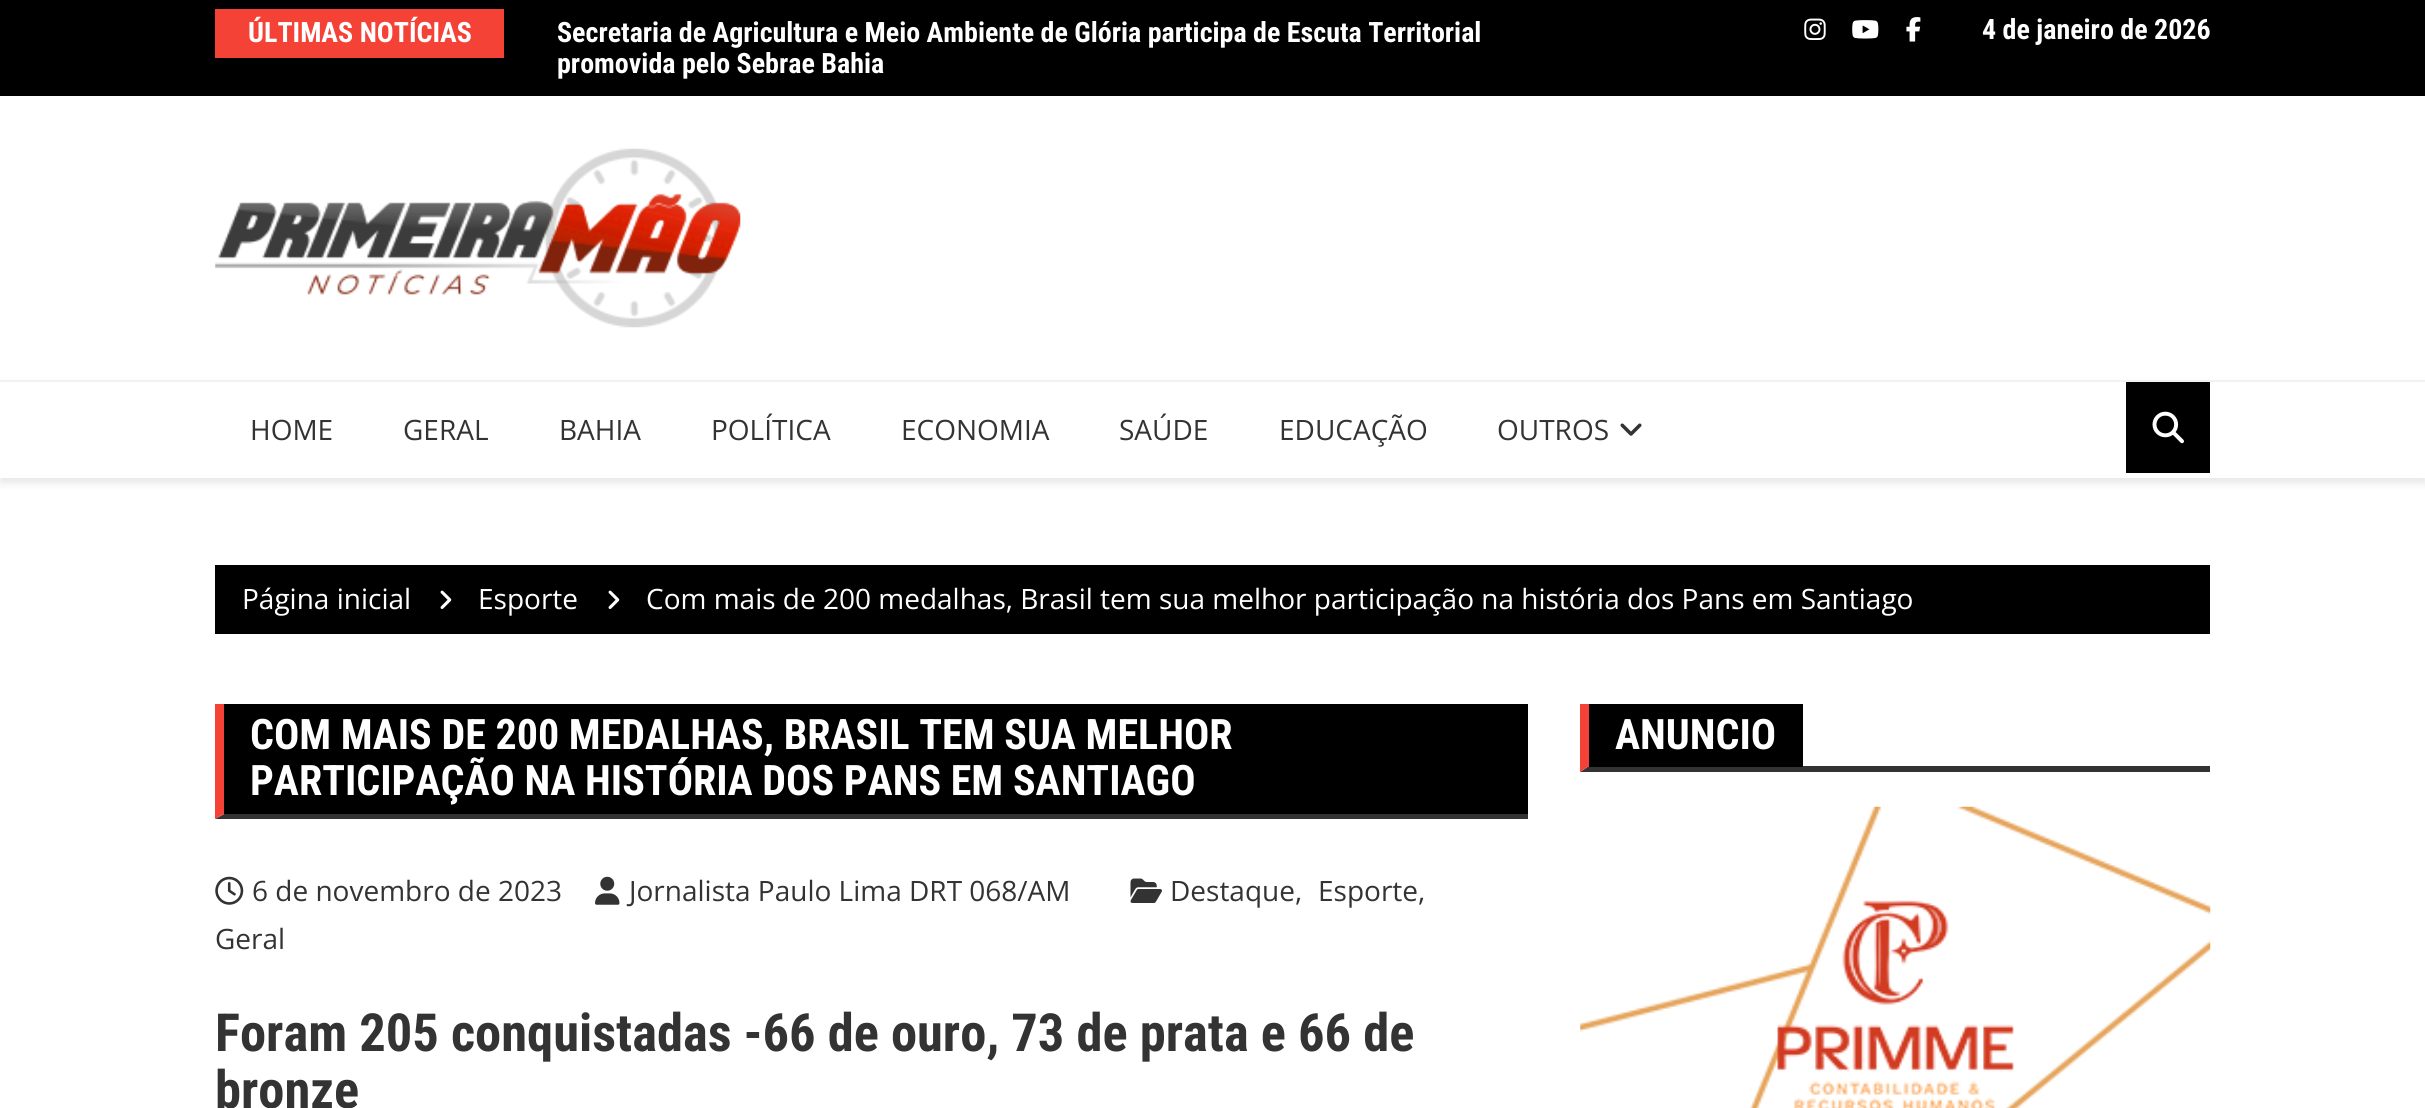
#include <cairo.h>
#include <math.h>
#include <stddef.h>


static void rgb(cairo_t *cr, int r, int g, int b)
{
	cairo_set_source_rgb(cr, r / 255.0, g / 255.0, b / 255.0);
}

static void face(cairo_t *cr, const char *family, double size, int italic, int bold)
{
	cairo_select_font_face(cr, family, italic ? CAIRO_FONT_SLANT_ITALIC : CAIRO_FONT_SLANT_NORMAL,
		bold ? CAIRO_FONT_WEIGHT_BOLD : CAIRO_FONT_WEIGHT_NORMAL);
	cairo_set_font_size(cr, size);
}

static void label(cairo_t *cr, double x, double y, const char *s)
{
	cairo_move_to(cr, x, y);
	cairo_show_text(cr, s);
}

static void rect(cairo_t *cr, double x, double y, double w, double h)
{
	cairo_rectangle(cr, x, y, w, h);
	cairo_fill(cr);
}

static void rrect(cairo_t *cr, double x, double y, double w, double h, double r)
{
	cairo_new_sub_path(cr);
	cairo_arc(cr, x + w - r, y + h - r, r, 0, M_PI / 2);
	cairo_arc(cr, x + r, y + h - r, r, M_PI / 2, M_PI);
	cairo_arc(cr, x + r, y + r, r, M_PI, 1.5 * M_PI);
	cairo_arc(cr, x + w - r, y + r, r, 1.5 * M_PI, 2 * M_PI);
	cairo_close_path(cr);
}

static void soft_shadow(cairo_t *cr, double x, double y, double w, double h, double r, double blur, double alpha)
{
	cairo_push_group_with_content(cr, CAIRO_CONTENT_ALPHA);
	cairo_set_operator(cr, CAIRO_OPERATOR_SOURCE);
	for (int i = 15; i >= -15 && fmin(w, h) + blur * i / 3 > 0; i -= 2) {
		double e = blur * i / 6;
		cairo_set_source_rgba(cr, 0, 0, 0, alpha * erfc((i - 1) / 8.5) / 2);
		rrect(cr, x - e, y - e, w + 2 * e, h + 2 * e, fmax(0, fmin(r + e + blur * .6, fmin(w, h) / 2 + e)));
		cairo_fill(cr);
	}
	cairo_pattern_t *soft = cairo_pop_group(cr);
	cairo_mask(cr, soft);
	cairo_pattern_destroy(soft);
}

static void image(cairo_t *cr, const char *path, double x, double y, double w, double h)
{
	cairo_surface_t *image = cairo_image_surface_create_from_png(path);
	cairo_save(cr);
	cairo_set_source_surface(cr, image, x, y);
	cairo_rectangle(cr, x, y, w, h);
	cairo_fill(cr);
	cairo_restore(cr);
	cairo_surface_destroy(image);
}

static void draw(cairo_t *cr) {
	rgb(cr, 255, 255, 255);
	cairo_paint(cr);
	rgb(cr, 0, 0, 0);
	rect(cr, 0, 0, 2425, 96);
	rgb(cr, 244, 67, 54);
	rect(cr, 215, 9, 289, 49);
	face(cr, "Roboto Condensed", 28, 0, 1);
	rgb(cr, 255, 255, 255);
	label(cr, 248, 42, "ÚLTIMAS NOTÍCIAS");
	label(cr, 557, 42, "Secretaria de Agricultura e Meio Ambiente de Glória participa de Escuta Territorial");
	label(cr, 557, 73, "promovida pelo Sebrae Bahia");
	image(cr, "image0.png", 1804, 18, 22, 22);
	image(cr, "image1.png", 1852, 20, 27, 19);
	image(cr, "image2.png", 1906, 17, 15, 25);
	label(cr, 1982, 39, "4 de janeiro de 2026");
	image(cr, "image3.png", 215, 148, 526, 180);
	cairo_save(cr);
	cairo_set_fill_rule(cr, CAIRO_FILL_RULE_EVEN_ODD);
	cairo_new_path(cr);
	cairo_move_to(cr, 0, 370);
	cairo_line_to(cr, 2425, 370);
	cairo_line_to(cr, 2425, 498);
	cairo_line_to(cr, 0, 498);
	cairo_close_path(cr);
	cairo_move_to(cr, 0, 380);
	cairo_line_to(cr, 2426, 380);
	cairo_line_to(cr, 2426, 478);
	cairo_line_to(cr, 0, 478);
	cairo_close_path(cr);
	cairo_clip(cr);
	rgb(cr, 0, 0, 0);
	soft_shadow(cr, 0, 385, 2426, 98, 0, 4.5, 0.1);
	cairo_restore(cr);
	rgb(cr, 242, 242, 242);
	rect(cr, 0, 380, 2425, 2);
	face(cr, "Open Sans", 28, 0, 0);
	rgb(cr, 51, 51, 51);
	label(cr, 250, 440, "HOME");
	label(cr, 403, 440, "GERAL");
	label(cr, 559, 440, "BAHIA");
	label(cr, 711, 440, "POLÍTICA");
	label(cr, 901, 440, "ECONOMIA");
	label(cr, 1119, 440, "SAÚDE");
	label(cr, 1279, 440, "EDUCAÇÃO");
	label(cr, 1497, 440, "OUTROS");
	image(cr, "image4.png", 1620, 423, 22, 13);
	rgb(cr, 0, 0, 0);
	rect(cr, 2126, 382, 84, 91);
	image(cr, "image5.png", 2152, 411, 32, 33);
	rect(cr, 215, 565, 1995, 69);
	rgb(cr, 255, 255, 255);
	label(cr, 242, 609, "Página inicial");
	image(cr, "image6.png", 440, 590, 12, 19);
	label(cr, 478, 609, "Esporte");
	image(cr, "image6.png", 608, 590, 12, 19);
	label(cr, 646, 609, "Com mais de 200 medalhas, Brasil tem sua melhor participação na história dos Pans em Santiago");
	rgb(cr, 51, 51, 51);
	cairo_new_path(cr);
	cairo_move_to(cr, 1528, 819);
	cairo_line_to(cr, 215, 819);
	cairo_line_to(cr, 224, 814);
	cairo_line_to(cr, 1528, 814);
	cairo_close_path(cr);
	cairo_fill(cr);
	rgb(cr, 244, 67, 54);
	cairo_new_path(cr);
	cairo_move_to(cr, 215, 819);
	cairo_line_to(cr, 215, 704);
	cairo_line_to(cr, 224, 704);
	cairo_line_to(cr, 224, 814);
	cairo_close_path(cr);
	cairo_fill(cr);
	rgb(cr, 0, 0, 0);
	rect(cr, 224, 704, 1304, 110);
	face(cr, "Roboto Condensed", 42, 0, 1);
	rgb(cr, 255, 255, 255);
	label(cr, 250, 749, "COM MAIS DE 200 MEDALHAS, BRASIL TEM SUA MELHOR");
	label(cr, 250, 795, "PARTICIPAÇÃO NA HISTÓRIA DOS PANS EM SANTIAGO");
	image(cr, "image7.png", 215, 876, 29, 29);
	face(cr, "Open Sans", 28, 0, 0);
	rgb(cr, 51, 51, 51);
	label(cr, 252, 901, "6 de novembro de 2023");
	image(cr, "image8.png", 595, 876, 25, 29);
	label(cr, 629, 901, "Jornalista Paulo Lima DRT 068/AM");
	image(cr, "image9.png", 1130, 878, 32, 25);
	label(cr, 1170, 901, "Destaque,");
	label(cr, 1318, 901, "Esporte,");
	label(cr, 215, 949, "Geral");
	face(cr, "Roboto Condensed", 52.5, 0, 1);
	label(cr, 215, 1051, "Foram 205 conquistadas -66 de ouro, 73 de prata e 66 de");
	label(cr, 215, 1108, "bronze");
	cairo_new_path(cr);
	cairo_move_to(cr, 2210, 772);
	cairo_line_to(cr, 1580, 772);
	cairo_line_to(cr, 1589, 766);
	cairo_line_to(cr, 2210, 766);
	cairo_close_path(cr);
	cairo_fill(cr);
	rgb(cr, 244, 67, 54);
	cairo_new_path(cr);
	cairo_move_to(cr, 1580, 772);
	cairo_line_to(cr, 1580, 704);
	cairo_line_to(cr, 1589, 704);
	cairo_line_to(cr, 1589, 766);
	cairo_close_path(cr);
	cairo_fill(cr);
	rgb(cr, 0, 0, 0);
	rect(cr, 1589, 704, 214, 63);
	face(cr, "Roboto Condensed", 42, 0, 1);
	rgb(cr, 255, 255, 255);
	label(cr, 1615, 749, "ANUNCIO");
	image(cr, "image10.png", 1580, 806, 631, 302);
}

int main(void) {
	cairo_surface_t *surface = cairo_image_surface_create(CAIRO_FORMAT_RGB24, 2425, 1108);
	cairo_t *cr = cairo_create(surface);
	cairo_font_options_t *options = cairo_font_options_create();
	cairo_font_options_set_hint_metrics(options, CAIRO_HINT_METRICS_OFF);
	cairo_font_options_set_hint_style(options, CAIRO_HINT_STYLE_NONE);
	cairo_set_font_options(cr, options);
	cairo_set_miter_limit(cr, 4);
	draw(cr);
	cairo_surface_write_to_png(surface, "render.png");
	cairo_font_options_destroy(options);
	cairo_destroy(cr);
	cairo_surface_destroy(surface);
	return 0;
}
